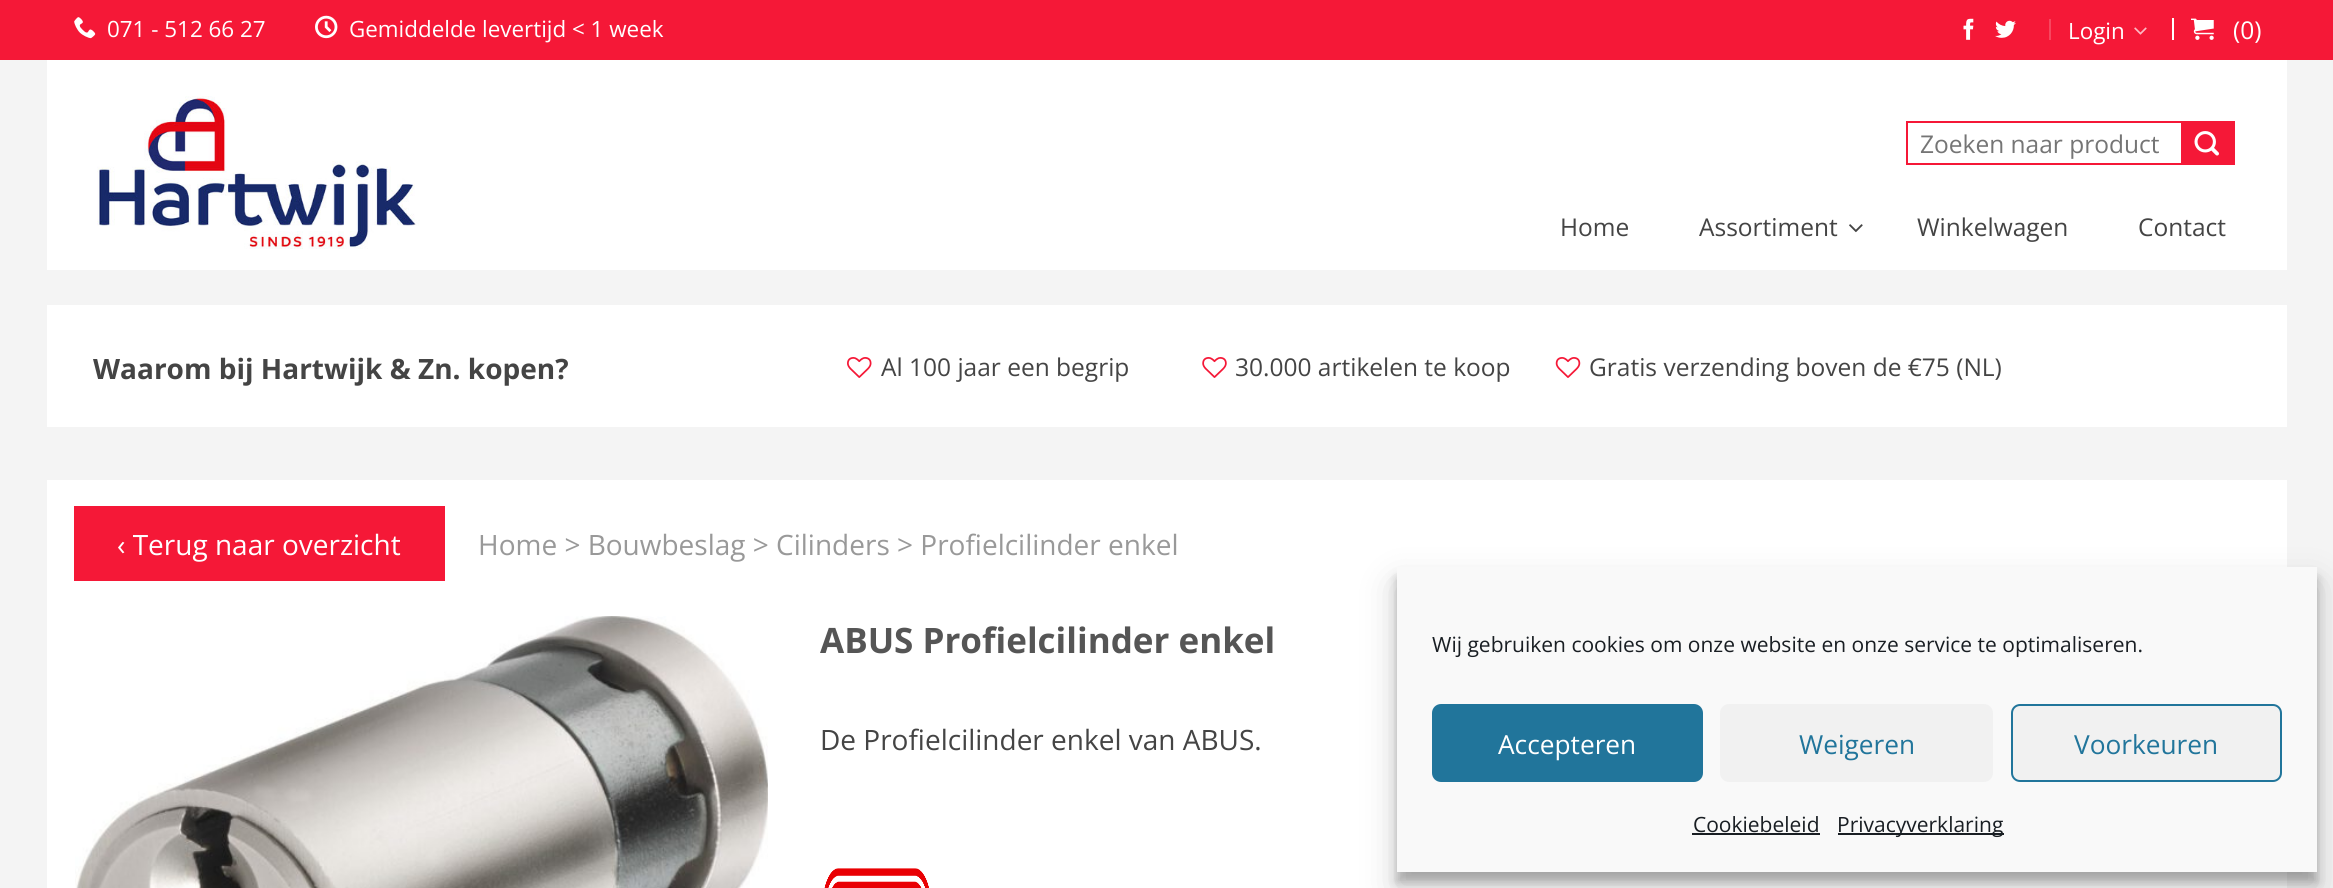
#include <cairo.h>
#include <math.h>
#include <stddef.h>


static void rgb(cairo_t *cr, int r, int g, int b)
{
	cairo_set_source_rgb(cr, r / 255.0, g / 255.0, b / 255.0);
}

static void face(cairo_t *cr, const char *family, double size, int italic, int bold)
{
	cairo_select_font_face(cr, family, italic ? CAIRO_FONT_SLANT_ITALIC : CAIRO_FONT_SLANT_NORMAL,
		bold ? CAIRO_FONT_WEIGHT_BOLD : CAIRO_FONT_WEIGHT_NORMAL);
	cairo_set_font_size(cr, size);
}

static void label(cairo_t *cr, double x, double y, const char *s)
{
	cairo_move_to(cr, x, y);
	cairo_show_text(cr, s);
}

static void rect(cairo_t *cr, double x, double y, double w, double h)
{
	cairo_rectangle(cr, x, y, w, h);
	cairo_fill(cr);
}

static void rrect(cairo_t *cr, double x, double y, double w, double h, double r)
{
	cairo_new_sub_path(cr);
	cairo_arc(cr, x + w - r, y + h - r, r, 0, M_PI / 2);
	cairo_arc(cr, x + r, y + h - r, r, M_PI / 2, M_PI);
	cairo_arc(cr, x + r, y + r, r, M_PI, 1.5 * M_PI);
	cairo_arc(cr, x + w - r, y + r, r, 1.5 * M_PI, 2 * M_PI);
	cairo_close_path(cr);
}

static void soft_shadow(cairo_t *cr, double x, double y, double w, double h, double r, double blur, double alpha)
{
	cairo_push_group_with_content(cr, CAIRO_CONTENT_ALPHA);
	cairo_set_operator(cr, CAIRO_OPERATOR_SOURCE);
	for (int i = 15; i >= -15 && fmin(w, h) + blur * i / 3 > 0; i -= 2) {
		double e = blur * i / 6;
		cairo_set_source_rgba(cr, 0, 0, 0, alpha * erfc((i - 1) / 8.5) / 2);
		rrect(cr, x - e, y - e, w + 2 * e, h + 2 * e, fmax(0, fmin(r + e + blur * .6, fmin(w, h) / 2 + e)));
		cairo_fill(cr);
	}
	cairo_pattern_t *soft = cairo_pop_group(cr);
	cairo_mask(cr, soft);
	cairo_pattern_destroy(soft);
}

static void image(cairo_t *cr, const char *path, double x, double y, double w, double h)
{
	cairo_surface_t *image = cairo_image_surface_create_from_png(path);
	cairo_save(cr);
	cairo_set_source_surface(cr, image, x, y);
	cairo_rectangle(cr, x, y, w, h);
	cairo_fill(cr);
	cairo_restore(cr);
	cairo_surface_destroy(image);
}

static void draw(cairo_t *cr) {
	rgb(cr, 244, 244, 244);
	cairo_paint(cr);
	rgb(cr, 245, 24, 55);
	rect(cr, 0, 0, 2333, 60);
	image(cr, "image0.png", 74, 17, 22, 22);
	face(cr, "Open Sans", 22.4, 0, 0);
	rgb(cr, 255, 255, 255);
	label(cr, 107, 37, "071 - 512 66 27");
	image(cr, "image1.png", 315, 15, 23, 24);
	label(cr, 349, 37, "Gemiddelde levertijd < 1 week");
	image(cr, "image2.png", 1963, 18, 11, 22);
	image(cr, "image3.png", 1995, 20, 21, 18);
	rgb(cr, 247, 70, 95);
	rect(cr, 2049, 19, 2, 21);
	rgb(cr, 255, 255, 255);
	label(cr, 2068, 39, "Login");
	image(cr, "image4.png", 2134, 27, 13, 8);
	rect(cr, 2172, 18, 2, 22);
	image(cr, "image5.png", 2191, 18, 23, 22);
	face(cr, "Open Sans", 24.5, 0, 0);
	label(cr, 2233, 39, "(0)");
	rect(cr, 47, 60, 2240, 210);
	image(cr, "image6.png", 97, 96, 323, 153);
	rgb(cr, 245, 24, 55);
	rect(cr, 1906, 121, 275, 2);
	rect(cr, 1906, 163, 275, 2);
	rect(cr, 1906, 121, 2, 44);
	rgb(cr, 117, 117, 117);
	label(cr, 1920, 153, "Zoeken naar product");
	rgb(cr, 245, 24, 55);
	rect(cr, 2181, 121, 54, 44);
	image(cr, "image7.png", 2194, 131, 25, 25);
	rgb(cr, 68, 68, 68);
	label(cr, 1560, 236, "Home");
	label(cr, 1699, 236, "Assortiment");
	image(cr, "image8.png", 1849, 224, 14, 9);
	label(cr, 1917, 236, "Winkelwagen");
	label(cr, 2138, 236, "Contact");
	rgb(cr, 255, 255, 255);
	rect(cr, 47, 305, 2240, 122);
	face(cr, "Open Sans", 28, 0, 1);
	rgb(cr, 68, 68, 68);
	label(cr, 93, 379, "Waarom bij Hartwijk & Zn. kopen?");
	image(cr, "image9.png", 847, 357, 25, 21);
	face(cr, "Open Sans", 24.5, 0, 0);
	label(cr, 881, 376, "Al 100 jaar een begrip");
	image(cr, "image10.png", 1202, 357, 25, 21);
	label(cr, 1235, 376, "30.000 artikelen te koop");
	image(cr, "image11.png", 1555, 357, 26, 21);
	label(cr, 1589, 376, "Gratis verzending boven de €75 (NL)");
	rgb(cr, 255, 255, 255);
	rect(cr, 47, 480, 2240, 408);
	rgb(cr, 245, 24, 55);
	rect(cr, 74, 506, 371, 75);
	face(cr, "Open Sans", 28, 0, 0);
	rgb(cr, 255, 255, 255);
	label(cr, 117, 555, "‹ Terug naar overzicht");
	rgb(cr, 153, 153, 153);
	label(cr, 478, 555, "Home > Bouwbeslag > Cilinders > Profielcilinder enkel");
	image(cr, "image12.png", 75, 616, 693, 272);
	face(cr, "Open Sans", 35, 0, 1);
	rgb(cr, 85, 85, 85);
	label(cr, 820, 653, "ABUS Profielcilinder enkel");
	face(cr, "Open Sans", 28, 0, 0);
	rgb(cr, 68, 68, 68);
	label(cr, 820, 750, "De Profielcilinder enkel van ABUS.");
	image(cr, "image13.png", 824, 868, 105, 20);
	rgb(cr, 0, 0, 0);
	soft_shadow(cr, 1397, 578, 920, 304, 0, 5, 0.23);
	soft_shadow(cr, 1397, 585, 920, 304, 0, 17.5, 0.19);
	rgb(cr, 249, 249, 249);
	rect(cr, 1397, 567, 920, 305);
	face(cr, "Open Sans", 21, 0, 0);
	rgb(cr, 25, 30, 35);
	label(cr, 1432, 652, "Wij gebruiken cookies om onze website en onze service te optimaliseren.");
	rgb(cr, 33, 117, 155);
	rrect(cr, 1433, 705, 269, 76, 8);
	cairo_fill_preserve(cr);
	cairo_stroke(cr);
	face(cr, "Open Sans", 26.25, 0, 0);
	rgb(cr, 255, 255, 255);
	label(cr, 1498, 754, "Accepteren");
	rgb(cr, 241, 241, 241);
	rrect(cr, 1720, 704, 273, 78, 9);
	cairo_fill(cr);
	rgb(cr, 33, 117, 155);
	label(cr, 1799, 754, "Weigeren");
	rgb(cr, 241, 241, 241);
	rrect(cr, 2012, 705, 269, 76, 8);
	cairo_fill_preserve(cr);
	rgb(cr, 33, 117, 155);
	cairo_stroke(cr);
	label(cr, 2074, 754, "Voorkeuren");
	face(cr, "Open Sans", 21, 0, 0);
	rgb(cr, 25, 30, 35);
	label(cr, 1693, 832, "Cookiebeleid");
	rect(cr, 1692, 833, 128, 2);
	rect(cr, 1838, 833, 166, 2);
	label(cr, 1837, 832, "Privacyverklaring");
}

int main(void) {
	cairo_surface_t *surface = cairo_image_surface_create(CAIRO_FORMAT_RGB24, 2333, 888);
	cairo_t *cr = cairo_create(surface);
	cairo_font_options_t *options = cairo_font_options_create();
	cairo_font_options_set_hint_metrics(options, CAIRO_HINT_METRICS_OFF);
	cairo_font_options_set_hint_style(options, CAIRO_HINT_STYLE_NONE);
	cairo_set_font_options(cr, options);
	cairo_set_miter_limit(cr, 4);
	draw(cr);
	cairo_surface_write_to_png(surface, "render.png");
	cairo_font_options_destroy(options);
	cairo_destroy(cr);
	cairo_surface_destroy(surface);
	return 0;
}
